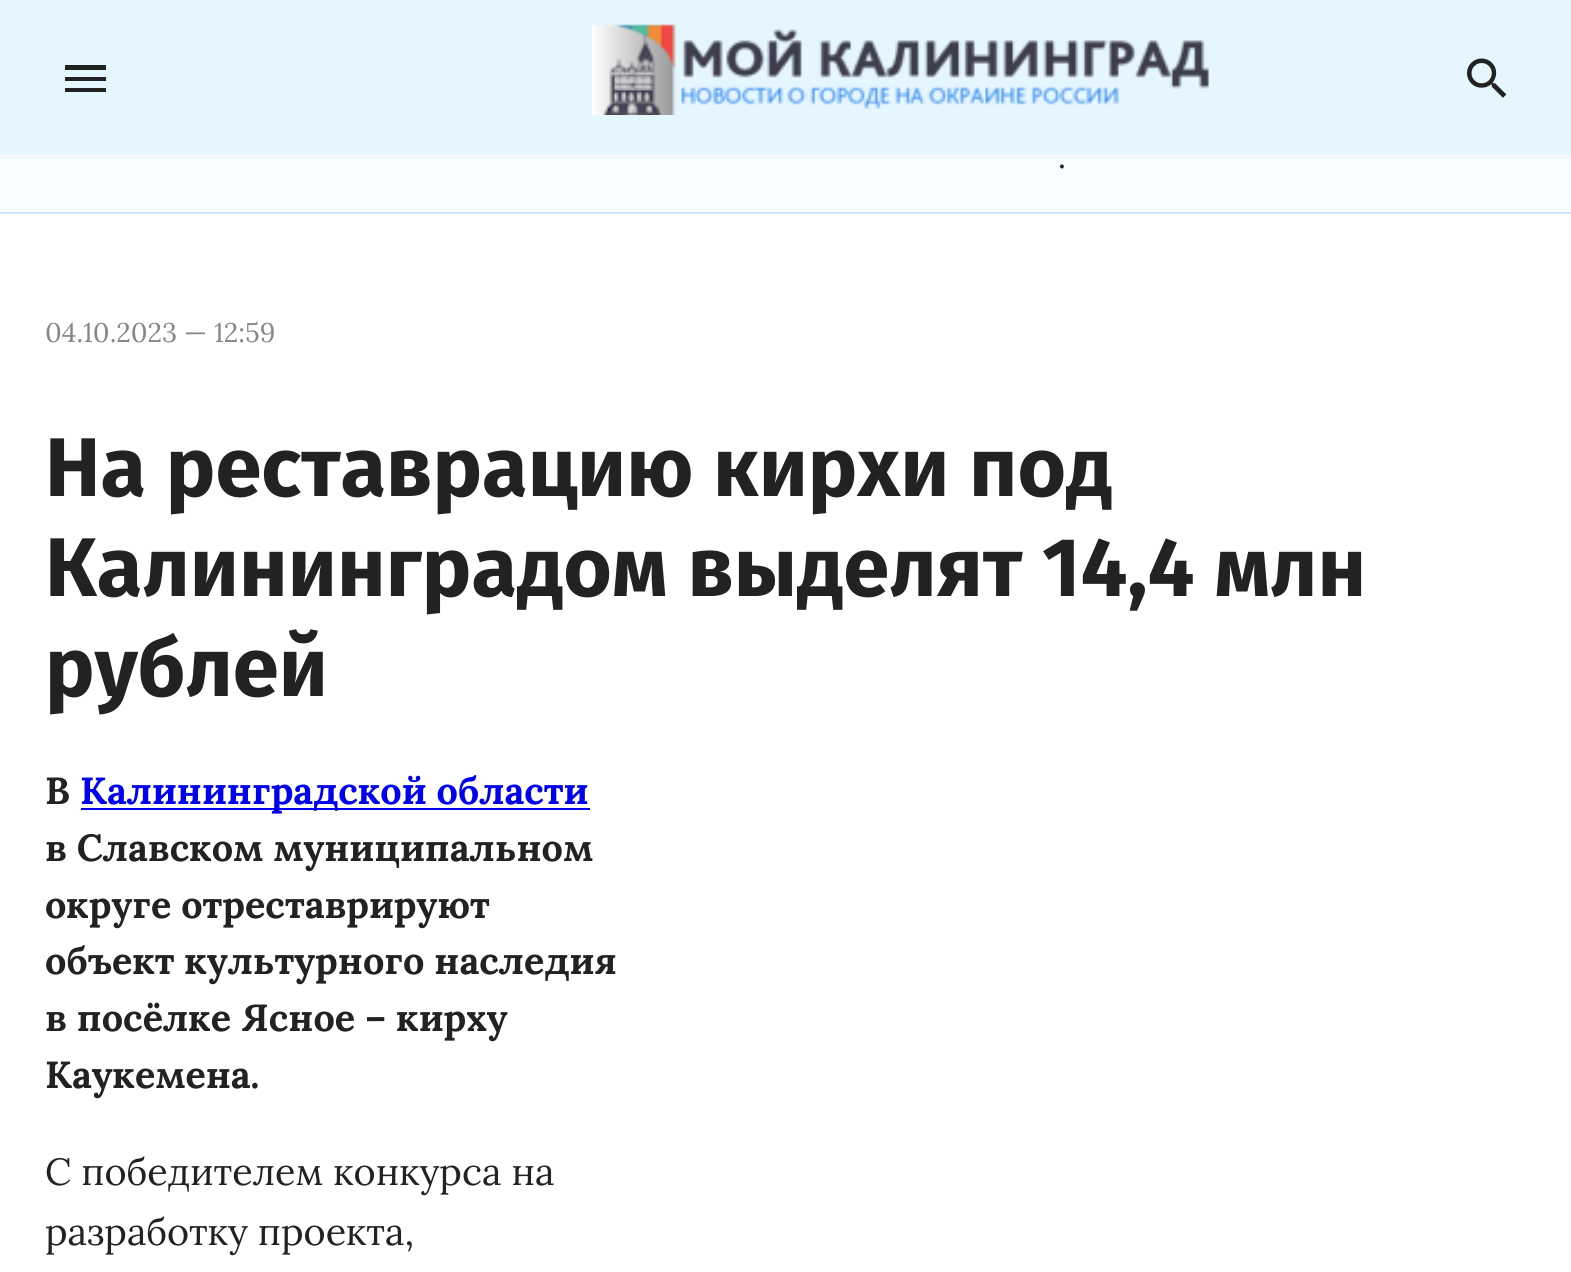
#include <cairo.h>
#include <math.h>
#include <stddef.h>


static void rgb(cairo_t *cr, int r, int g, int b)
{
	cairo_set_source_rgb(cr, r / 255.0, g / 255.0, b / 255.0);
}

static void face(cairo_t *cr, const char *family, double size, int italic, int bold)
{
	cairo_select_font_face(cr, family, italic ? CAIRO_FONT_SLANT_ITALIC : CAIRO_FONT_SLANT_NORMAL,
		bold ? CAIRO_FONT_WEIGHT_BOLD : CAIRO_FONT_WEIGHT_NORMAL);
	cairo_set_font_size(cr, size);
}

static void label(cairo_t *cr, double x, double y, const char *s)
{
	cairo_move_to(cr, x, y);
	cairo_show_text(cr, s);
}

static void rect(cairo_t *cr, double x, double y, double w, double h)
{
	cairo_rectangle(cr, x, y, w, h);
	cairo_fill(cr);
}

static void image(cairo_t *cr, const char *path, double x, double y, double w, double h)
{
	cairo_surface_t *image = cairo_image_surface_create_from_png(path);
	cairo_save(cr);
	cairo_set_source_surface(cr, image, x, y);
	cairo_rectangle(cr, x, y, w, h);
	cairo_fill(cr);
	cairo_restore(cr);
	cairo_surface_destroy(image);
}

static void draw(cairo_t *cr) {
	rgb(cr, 255, 255, 255);
	cairo_paint(cr);
	rgb(cr, 229, 246, 255);
	rect(cr, 0, 0, 1571, 158);
	rgb(cr, 248, 247, 252);
	rect(cr, 0, 155, 1571, 2);
	rgb(cr, 34, 34, 34);
	cairo_new_path(cr);
	cairo_move_to(cr, 65, 65);
	cairo_line_to(cr, 106, 65);
	cairo_line_to(cr, 106, 70);
	cairo_line_to(cr, 65, 70);
	cairo_close_path(cr);
	cairo_move_to(cr, 65, 81);
	cairo_line_to(cr, 65, 77);
	cairo_line_to(cr, 106, 77);
	cairo_line_to(cr, 106, 81);
	cairo_close_path(cr);
	cairo_move_to(cr, 65, 92);
	cairo_line_to(cr, 65, 88);
	cairo_line_to(cr, 106, 88);
	cairo_line_to(cr, 106, 92);
	cairo_close_path(cr);
	cairo_fill(cr);
	image(cr, "image0.png", 591, 24, 619, 91);
	image(cr, "image1.png", 1467, 58, 40, 40);
	rgb(cr, 247, 252, 255);
	rect(cr, 0, 158, 1571, 54);
	rgb(cr, 209, 231, 255);
	rect(cr, 0, 212, 1571, 2);
	face(cr, "Lora", 32, 0, 0);
	rgb(cr, 34, 34, 34);
	label(cr, 1058, 168, ".");
	face(cr, "Lora", 27, 0, 0);
	rgb(cr, 136, 136, 136);
	label(cr, 45, 342, "04.10.2023 — 12:59");
	face(cr, "Fira Sans", 83.2, 0, 1);
	rgb(cr, 34, 34, 34);
	label(cr, 45, 496, "На реставрацию кирхи под");
	label(cr, 45, 596, "Калининградом выделят 14,4 млн");
	label(cr, 45, 696, "рублей");
	face(cr, "Lora", 37.75, 0, 1);
	label(cr, 45, 804, "В");
	rgb(cr, 0, 0, 238);
	rect(cr, 81, 808, 509, 2);
	label(cr, 80, 804, "Калининградской области");
	rgb(cr, 34, 34, 34);
	label(cr, 45, 861, "в Славском муниципальном");
	label(cr, 45, 918, "округе отреставрируют");
	label(cr, 45, 974, "объект культурного наследия");
	label(cr, 45, 1031, "в посёлке Ясное – кирху");
	label(cr, 45, 1088, "Каукемена.");
	face(cr, "Lora", 37.75, 0, 0);
	label(cr, 45, 1185, "С победителем конкурса на");
	label(cr, 45, 1245, "разработку проекта,");
}

int main(void) {
	cairo_surface_t *surface = cairo_image_surface_create(CAIRO_FORMAT_RGB24, 1571, 1272);
	cairo_t *cr = cairo_create(surface);
	cairo_font_options_t *options = cairo_font_options_create();
	cairo_font_options_set_hint_metrics(options, CAIRO_HINT_METRICS_OFF);
	cairo_font_options_set_hint_style(options, CAIRO_HINT_STYLE_NONE);
	cairo_set_font_options(cr, options);
	cairo_set_miter_limit(cr, 4);
	draw(cr);
	cairo_surface_write_to_png(surface, "render.png");
	cairo_font_options_destroy(options);
	cairo_destroy(cr);
	cairo_surface_destroy(surface);
	return 0;
}
